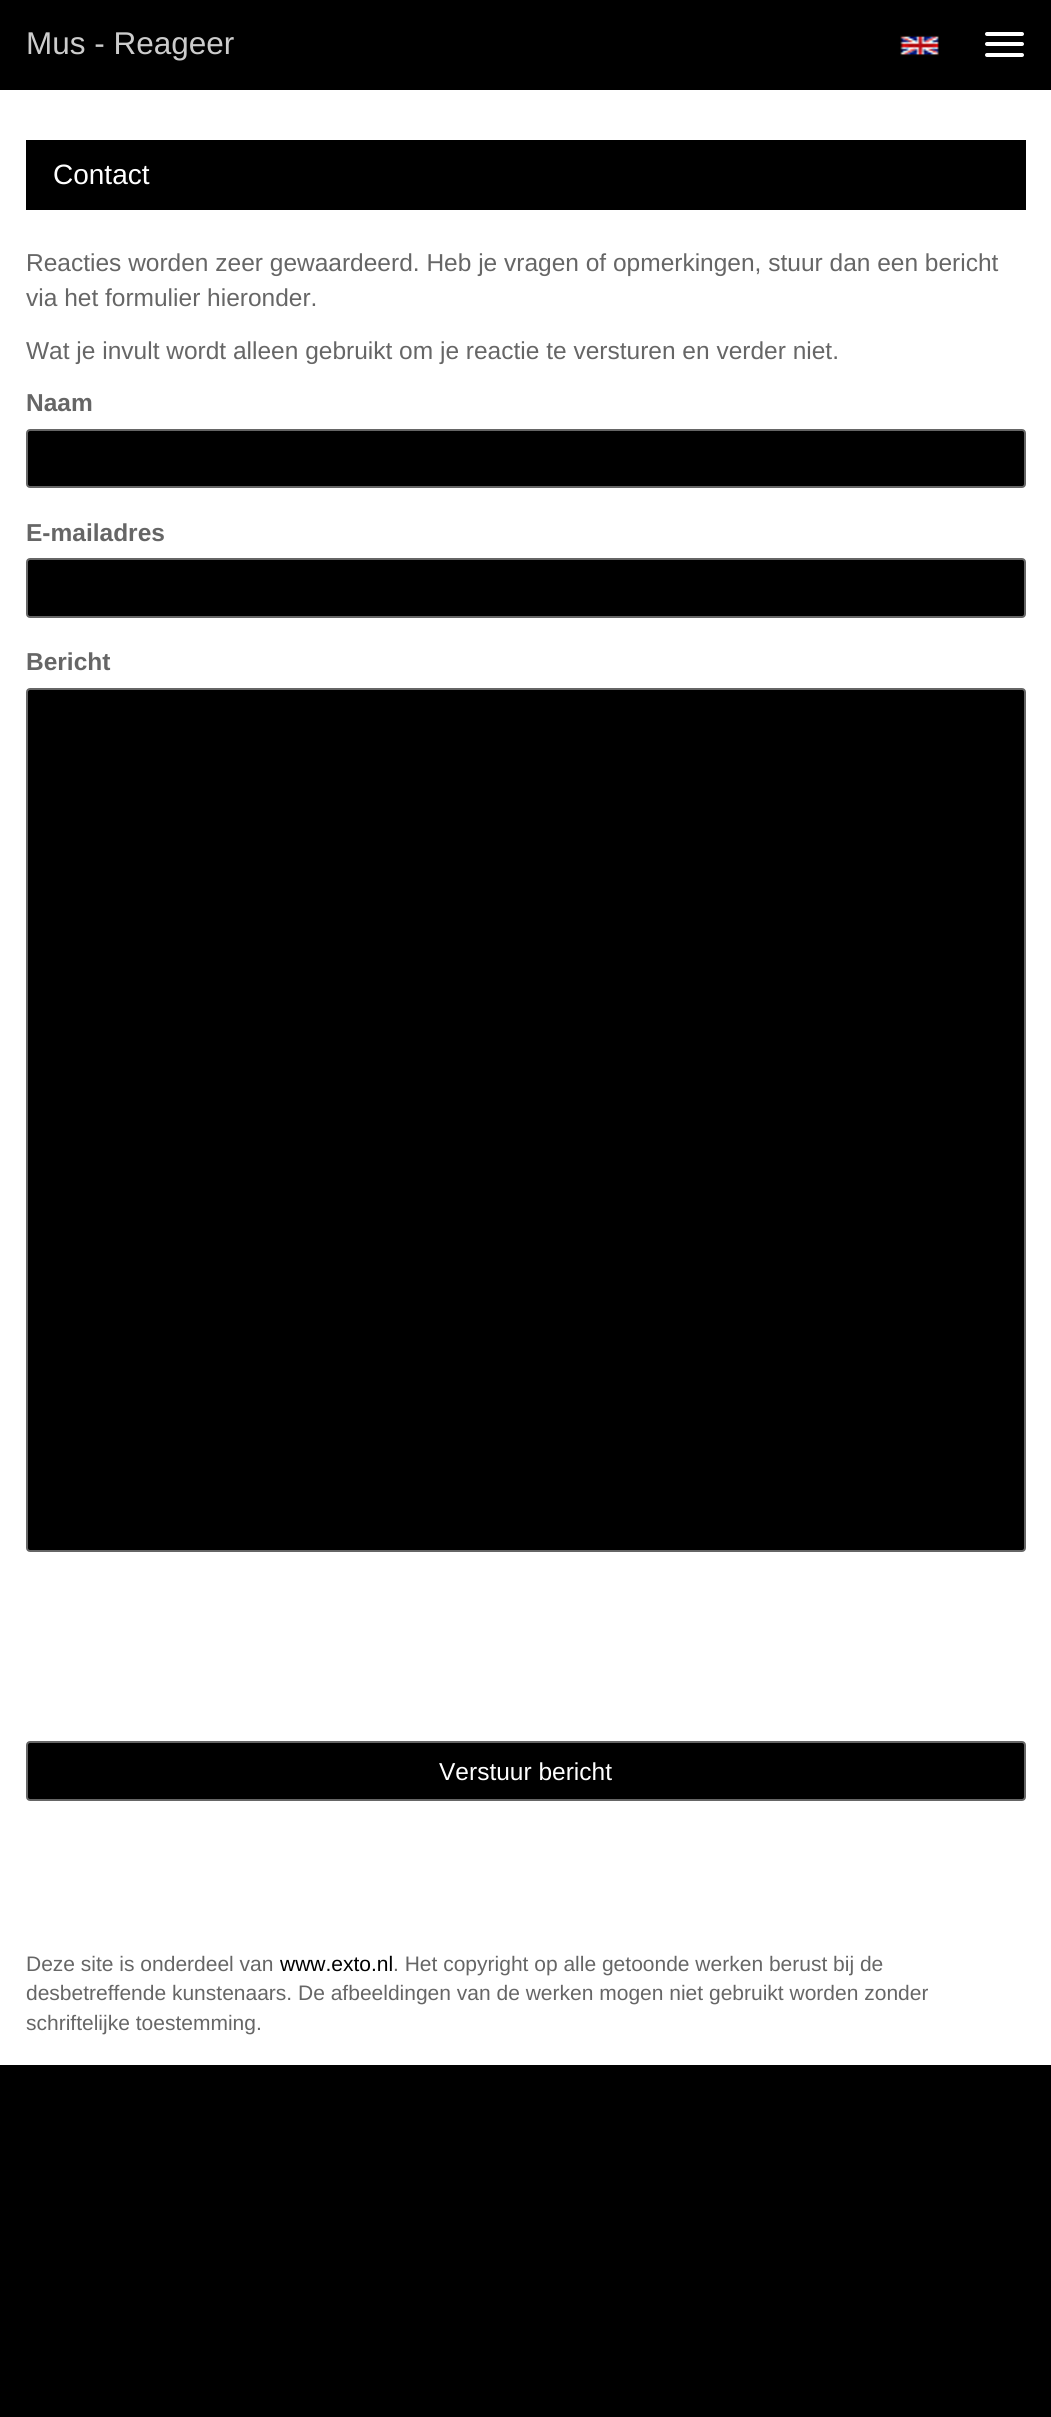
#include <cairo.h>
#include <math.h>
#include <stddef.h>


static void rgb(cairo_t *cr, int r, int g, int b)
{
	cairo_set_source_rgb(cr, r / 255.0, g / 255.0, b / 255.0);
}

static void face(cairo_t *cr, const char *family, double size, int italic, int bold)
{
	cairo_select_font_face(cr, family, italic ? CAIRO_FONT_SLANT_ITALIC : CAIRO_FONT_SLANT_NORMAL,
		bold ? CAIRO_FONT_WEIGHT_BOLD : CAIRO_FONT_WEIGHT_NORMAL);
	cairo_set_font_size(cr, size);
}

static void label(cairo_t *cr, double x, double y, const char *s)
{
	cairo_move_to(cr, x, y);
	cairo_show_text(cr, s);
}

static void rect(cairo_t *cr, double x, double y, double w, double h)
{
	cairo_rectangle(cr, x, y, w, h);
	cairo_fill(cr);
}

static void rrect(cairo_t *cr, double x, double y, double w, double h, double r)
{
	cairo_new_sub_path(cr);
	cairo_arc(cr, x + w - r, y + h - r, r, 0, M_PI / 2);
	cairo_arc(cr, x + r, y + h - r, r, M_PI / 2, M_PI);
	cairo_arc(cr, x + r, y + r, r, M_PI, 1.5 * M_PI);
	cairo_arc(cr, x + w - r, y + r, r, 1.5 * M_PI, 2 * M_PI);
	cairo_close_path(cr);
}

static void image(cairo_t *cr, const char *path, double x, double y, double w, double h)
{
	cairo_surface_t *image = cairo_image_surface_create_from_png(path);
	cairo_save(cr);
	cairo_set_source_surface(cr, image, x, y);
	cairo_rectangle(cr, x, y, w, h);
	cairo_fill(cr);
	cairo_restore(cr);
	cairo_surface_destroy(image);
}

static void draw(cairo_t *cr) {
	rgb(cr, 0, 0, 0);
	cairo_paint(cr);
	rgb(cr, 255, 255, 255);
	rect(cr, 0, 90, 1051, 1975);
	face(cr, "Liberation Sans", 31.5, 0, 0);
	rgb(cr, 204, 204, 204);
	label(cr, 26, 54, "Mus - Reageer");
	rgb(cr, 255, 255, 255);
	rrect(cr, 985, 32, 39, 4, 2);
	cairo_fill(cr);
	rrect(cr, 985, 42, 39, 4, 2);
	cairo_fill(cr);
	rrect(cr, 985, 53, 39, 4, 2);
	cairo_fill(cr);
	image(cr, "image0.png", 900, 35, 39, 21);
	rgb(cr, 0, 0, 0);
	rect(cr, 26, 140, 1000, 70);
	face(cr, "Liberation Sans", 28, 0, 0);
	rgb(cr, 255, 255, 255);
	label(cr, 53, 184, "Contact");
	face(cr, "Liberation Sans", 24.5, 0, 0);
	rgb(cr, 102, 102, 102);
	label(cr, 26, 271, "Reacties worden zeer gewaardeerd. Heb je vragen of opmerkingen, stuur dan een bericht");
	label(cr, 26, 306, "via het formulier hieronder.");
	label(cr, 26, 359, "Wat je invult wordt alleen gebruikt om je reactie te versturen en verder niet.");
	face(cr, "Liberation Sans", 24.5, 0, 1);
	label(cr, 26, 411, "Naam");
	rgb(cr, 0, 0, 0);
	rrect(cr, 27, 430, 998, 57, 3);
	cairo_fill_preserve(cr);
	rgb(cr, 102, 102, 102);
	cairo_stroke(cr);
	label(cr, 26, 541, "E-mailadres");
	rgb(cr, 0, 0, 0);
	rrect(cr, 27, 559, 998, 58, 3);
	cairo_fill_preserve(cr);
	rgb(cr, 102, 102, 102);
	cairo_stroke(cr);
	label(cr, 26, 670, "Bericht");
	rgb(cr, 0, 0, 0);
	rrect(cr, 27, 689, 998, 862, 3);
	cairo_fill_preserve(cr);
	rgb(cr, 102, 102, 102);
	cairo_stroke(cr);
	rgb(cr, 0, 0, 0);
	rrect(cr, 27, 1742, 998, 58, 3);
	cairo_fill_preserve(cr);
	rgb(cr, 102, 102, 102);
	cairo_stroke(cr);
	face(cr, "Liberation Sans", 24.5, 0, 0);
	rgb(cr, 255, 255, 255);
	label(cr, 439, 1780, "Verstuur bericht");
	face(cr, "Liberation Sans", 21, 0, 0);
	rgb(cr, 102, 102, 102);
	label(cr, 26, 1971, "Deze site is onderdeel van");
	rgb(cr, 0, 0, 0);
	label(cr, 280, 1971, "www.exto.nl");
	rgb(cr, 102, 102, 102);
	label(cr, 393, 1971, ". Het copyright op alle getoonde werken berust bij de");
	label(cr, 26, 2000, "desbetreffende kunstenaars. De afbeeldingen van de werken mogen niet gebruikt worden zonder");
	label(cr, 26, 2030, "schriftelijke toestemming.");
}

int main(void) {
	cairo_surface_t *surface = cairo_image_surface_create(CAIRO_FORMAT_RGB24, 1051, 2417);
	cairo_t *cr = cairo_create(surface);
	cairo_font_options_t *options = cairo_font_options_create();
	cairo_font_options_set_hint_metrics(options, CAIRO_HINT_METRICS_OFF);
	cairo_font_options_set_hint_style(options, CAIRO_HINT_STYLE_NONE);
	cairo_set_font_options(cr, options);
	cairo_set_miter_limit(cr, 4);
	draw(cr);
	cairo_surface_write_to_png(surface, "render.png");
	cairo_font_options_destroy(options);
	cairo_destroy(cr);
	cairo_surface_destroy(surface);
	return 0;
}
